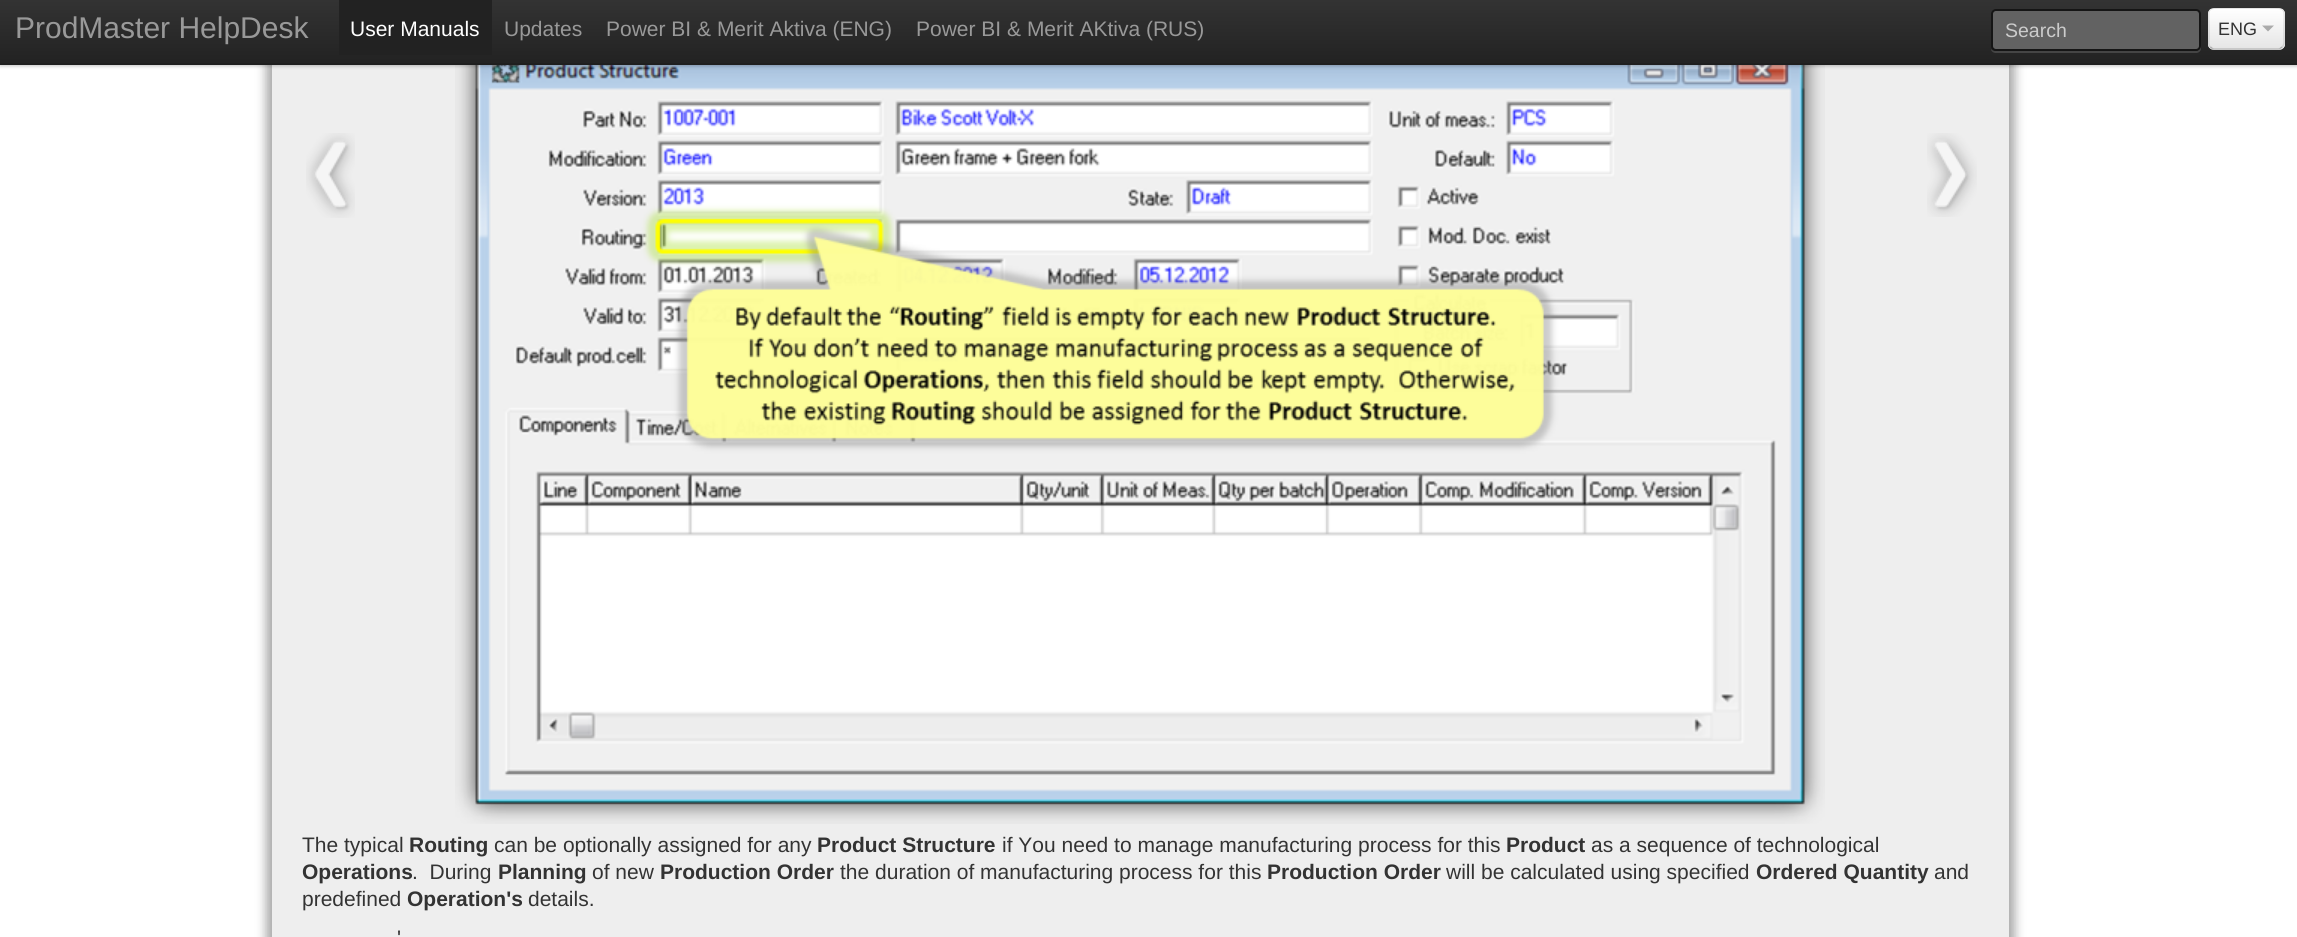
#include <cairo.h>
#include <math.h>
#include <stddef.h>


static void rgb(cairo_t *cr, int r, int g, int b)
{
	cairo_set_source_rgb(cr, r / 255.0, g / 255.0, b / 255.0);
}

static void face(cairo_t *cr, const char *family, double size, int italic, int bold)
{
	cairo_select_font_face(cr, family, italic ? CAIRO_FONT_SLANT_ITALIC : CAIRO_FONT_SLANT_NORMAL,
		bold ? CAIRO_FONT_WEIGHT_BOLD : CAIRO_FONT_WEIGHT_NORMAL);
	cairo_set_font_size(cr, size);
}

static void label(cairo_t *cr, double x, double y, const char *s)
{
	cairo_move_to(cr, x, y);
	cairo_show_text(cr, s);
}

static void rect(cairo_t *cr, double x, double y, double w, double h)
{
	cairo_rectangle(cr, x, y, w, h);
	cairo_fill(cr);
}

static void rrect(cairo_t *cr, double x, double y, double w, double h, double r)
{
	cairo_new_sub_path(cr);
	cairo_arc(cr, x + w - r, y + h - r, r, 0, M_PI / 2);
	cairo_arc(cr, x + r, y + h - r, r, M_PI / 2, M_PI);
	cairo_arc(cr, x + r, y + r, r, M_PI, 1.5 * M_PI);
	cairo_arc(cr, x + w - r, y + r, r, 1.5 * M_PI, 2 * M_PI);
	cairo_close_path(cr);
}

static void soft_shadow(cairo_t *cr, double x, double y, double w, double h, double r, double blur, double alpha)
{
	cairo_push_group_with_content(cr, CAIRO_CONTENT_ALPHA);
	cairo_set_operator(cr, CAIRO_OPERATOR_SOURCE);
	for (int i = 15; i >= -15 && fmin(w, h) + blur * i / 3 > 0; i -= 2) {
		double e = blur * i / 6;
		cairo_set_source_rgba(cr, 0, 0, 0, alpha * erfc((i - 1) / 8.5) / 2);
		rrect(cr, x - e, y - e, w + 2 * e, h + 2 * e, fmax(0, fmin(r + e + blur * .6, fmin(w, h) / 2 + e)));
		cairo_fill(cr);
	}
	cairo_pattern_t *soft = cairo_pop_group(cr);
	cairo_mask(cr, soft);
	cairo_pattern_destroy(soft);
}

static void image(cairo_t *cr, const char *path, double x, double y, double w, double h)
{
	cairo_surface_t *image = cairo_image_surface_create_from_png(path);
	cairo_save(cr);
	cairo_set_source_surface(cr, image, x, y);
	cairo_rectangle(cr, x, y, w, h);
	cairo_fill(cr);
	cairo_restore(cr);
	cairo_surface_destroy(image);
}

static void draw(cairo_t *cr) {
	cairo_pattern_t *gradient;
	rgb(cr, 255, 255, 255);
	cairo_paint(cr);
	rgb(cr, 169, 169, 169);
	soft_shadow(cr, 266, -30, 1749, 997, 15, 5, 1);
	rgb(cr, 238, 238, 238);
	rect(cr, 272, 65, 1737, 872);
	image(cr, "image1.png", 455, 65, 1370, 759);
	rgb(cr, 0, 0, 0);
	soft_shadow(cr, 0, 2, 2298, 64, 0, 2, 0.25);
	gradient = cairo_pattern_create_linear(1149, 0, 1149, 65);
	cairo_pattern_add_color_stop_rgba(gradient, 0, 0.2, 0.2, 0.2, 1);
	cairo_pattern_add_color_stop_rgba(gradient, 1, 0.133, 0.133, 0.133, 1);
	cairo_set_source(cr, gradient);
	cairo_pattern_destroy(gradient);
	rect(cr, 0, 0, 2297, 63);
	rgb(cr, 31, 31, 31);
	rect(cr, 0, 63, 2297, 2);
	face(cr, "Liberation Sans", 30, 0, 0);
	rgb(cr, 153, 153, 153);
	label(cr, 15, 38, "ProdMaster HelpDesk");
	rgb(cr, 34, 34, 34);
	rect(cr, 339, 0, 153, 55);
	face(cr, "Liberation Sans", 21, 0, 0);
	rgb(cr, 255, 255, 255);
	label(cr, 350, 36, "User Manuals");
	rgb(cr, 153, 153, 153);
	label(cr, 504, 36, "Updates");
	label(cr, 606, 36, "Power BI & Merit Aktiva (ENG)");
	label(cr, 916, 36, "Power BI & Merit AKtiva (RUS)");
	cairo_set_source_rgba(cr, 1, 1, 1, 0.15);
	cairo_new_path(cr);
	cairo_move_to(cr, 1991, 49);
	cairo_curve_to(cr, 1991, 51, 1993, 53, 1996, 53);
	cairo_line_to(cr, 2196, 53);
	cairo_curve_to(cr, 2199, 53, 2201, 51, 2201, 48);
	cairo_line_to(cr, 2201, 16);
	cairo_line_to(cr, 2200, 14);
	cairo_line_to(cr, 2200, 46);
	cairo_curve_to(cr, 2200, 49, 2198, 51, 2196, 51);
	cairo_line_to(cr, 1995, 51);
	cairo_curve_to(cr, 1993, 51, 1992, 50, 1991, 49);
	cairo_close_path(cr);
	cairo_fill(cr);
	rgb(cr, 98, 98, 98);
	rrect(cr, 1992, 10, 208, 40, 4);
	cairo_fill_preserve(cr);
	rgb(cr, 21, 21, 21);
	cairo_stroke(cr);
	face(cr, "Liberation Sans", 19.5, 0, 0);
	rgb(cr, 204, 204, 204);
	label(cr, 2005, 37, "Search");
	rgb(cr, 245, 245, 245);
	rrect(cr, 2208, 8, 77, 42, 6);
	cairo_fill(cr);
	cairo_save(cr);
	rrect(cr, 2208, 8, 77, 42, 6);
	cairo_clip(cr);
	gradient = cairo_pattern_create_linear(2246, 9, 2246, 48);
	cairo_pattern_add_color_stop_rgba(gradient, 0, 1, 1, 1, 1);
	cairo_pattern_add_color_stop_rgba(gradient, 1, 0.902, 0.902, 0.902, 1);
	cairo_set_source(cr, gradient);
	cairo_pattern_destroy(gradient);
	rect(cr, 2208, 9, 77, 39);
	cairo_restore(cr);
	cairo_new_path(cr);
	cairo_move_to(cr, 2282, 47);
	cairo_curve_to(cr, 2281, 48, 2280, 49, 2278.5, 49);
	cairo_line_to(cr, 2214, 49);
	cairo_curve_to(cr, 2212.5, 49, 2211.5, 48, 2210.5, 47);
	cairo_set_source_rgba(cr, 0, 0, 0, 0.25);
	cairo_set_line_width(cr, 1.5);
	cairo_stroke(cr);
	cairo_new_path(cr);
	cairo_move_to(cr, 2210.5, 47);
	cairo_curve_to(cr, 2208, 45, 2209, 41.5, 2209, 38.5);
	cairo_line_to(cr, 2209, 28.5);
	cairo_curve_to(cr, 2209, 8, 2205, 8, 2225, 8);
	cairo_line_to(cr, 2268, 8);
	cairo_curve_to(cr, 2287.5, 8, 2284, 8, 2284, 28.5);
	cairo_line_to(cr, 2284, 38.5);
	cairo_curve_to(cr, 2284, 41.5, 2284.5, 45, 2282, 47);
	cairo_set_source_rgba(cr, 0, 0, 0, 0.1);
	cairo_stroke(cr);
	face(cr, "Liberation Sans", 18, 0, 0);
	rgb(cr, 51, 51, 51);
	label(cr, 2218, 35, "ENG");
	cairo_set_source_rgba(cr, 0, 0, 0, 0.3);
	cairo_new_path(cr);
	cairo_move_to(cr, 2262, 25.5);
	cairo_line_to(cr, 2274, 25.5);
	cairo_line_to(cr, 2268, 31.5);
	cairo_close_path(cr);
	cairo_fill(cr);
	image(cr, "image0.png", 306, 133, 49, 85);
	image(cr, "image2.png", 1927, 133, 50, 84);
	face(cr, "Liberation Sans", 21, 0, 0);
	rgb(cr, 51, 51, 51);
	label(cr, 302, 852, "The typical");
	face(cr, "Liberation Sans", 21, 0, 1);
	label(cr, 409, 852, "Routing");
	face(cr, "Liberation Sans", 21, 0, 0);
	label(cr, 494, 852, "can be optionally assigned for any");
	face(cr, "Liberation Sans", 21, 0, 1);
	label(cr, 817, 852, "Product Structure");
	face(cr, "Liberation Sans", 21, 0, 0);
	label(cr, 1002, 852, "if You need to manage manufacturing process for this");
	face(cr, "Liberation Sans", 21, 0, 1);
	label(cr, 1506, 852, "Product");
	face(cr, "Liberation Sans", 21, 0, 0);
	label(cr, 1591, 852, "as a sequence of technological");
	face(cr, "Liberation Sans", 21, 0, 1);
	label(cr, 302, 879, "Operations");
	face(cr, "Liberation Sans", 21, 0, 0);
	label(cr, 412, 879, ".  During");
	face(cr, "Liberation Sans", 21, 0, 1);
	label(cr, 498, 879, "Planning");
	face(cr, "Liberation Sans", 21, 0, 0);
	label(cr, 592, 879, "of new");
	face(cr, "Liberation Sans", 21, 0, 1);
	label(cr, 660, 879, "Production Order");
	face(cr, "Liberation Sans", 21, 0, 0);
	label(cr, 840, 879, "the duration of manufacturing process for this");
	face(cr, "Liberation Sans", 21, 0, 1);
	label(cr, 1267, 879, "Production Order");
	face(cr, "Liberation Sans", 21, 0, 0);
	label(cr, 1446, 879, "will be calculated using specified");
	face(cr, "Liberation Sans", 21, 0, 1);
	label(cr, 1756, 879, "Ordered Quantity");
	face(cr, "Liberation Sans", 21, 0, 0);
	label(cr, 1934, 879, "and");
	label(cr, 302, 906, "predefined");
	face(cr, "Liberation Sans", 21, 0, 1);
	label(cr, 407, 906, "Operation's");
	face(cr, "Liberation Sans", 21, 0, 0);
	label(cr, 528, 906, "details.");
	label(cr, 397, 945, "'");
}

int main(void) {
	cairo_surface_t *surface = cairo_image_surface_create(CAIRO_FORMAT_RGB24, 2297, 937);
	cairo_t *cr = cairo_create(surface);
	cairo_font_options_t *options = cairo_font_options_create();
	cairo_font_options_set_hint_metrics(options, CAIRO_HINT_METRICS_OFF);
	cairo_font_options_set_hint_style(options, CAIRO_HINT_STYLE_NONE);
	cairo_set_font_options(cr, options);
	cairo_set_miter_limit(cr, 4);
	draw(cr);
	cairo_surface_write_to_png(surface, "render.png");
	cairo_font_options_destroy(options);
	cairo_destroy(cr);
	cairo_surface_destroy(surface);
	return 0;
}
